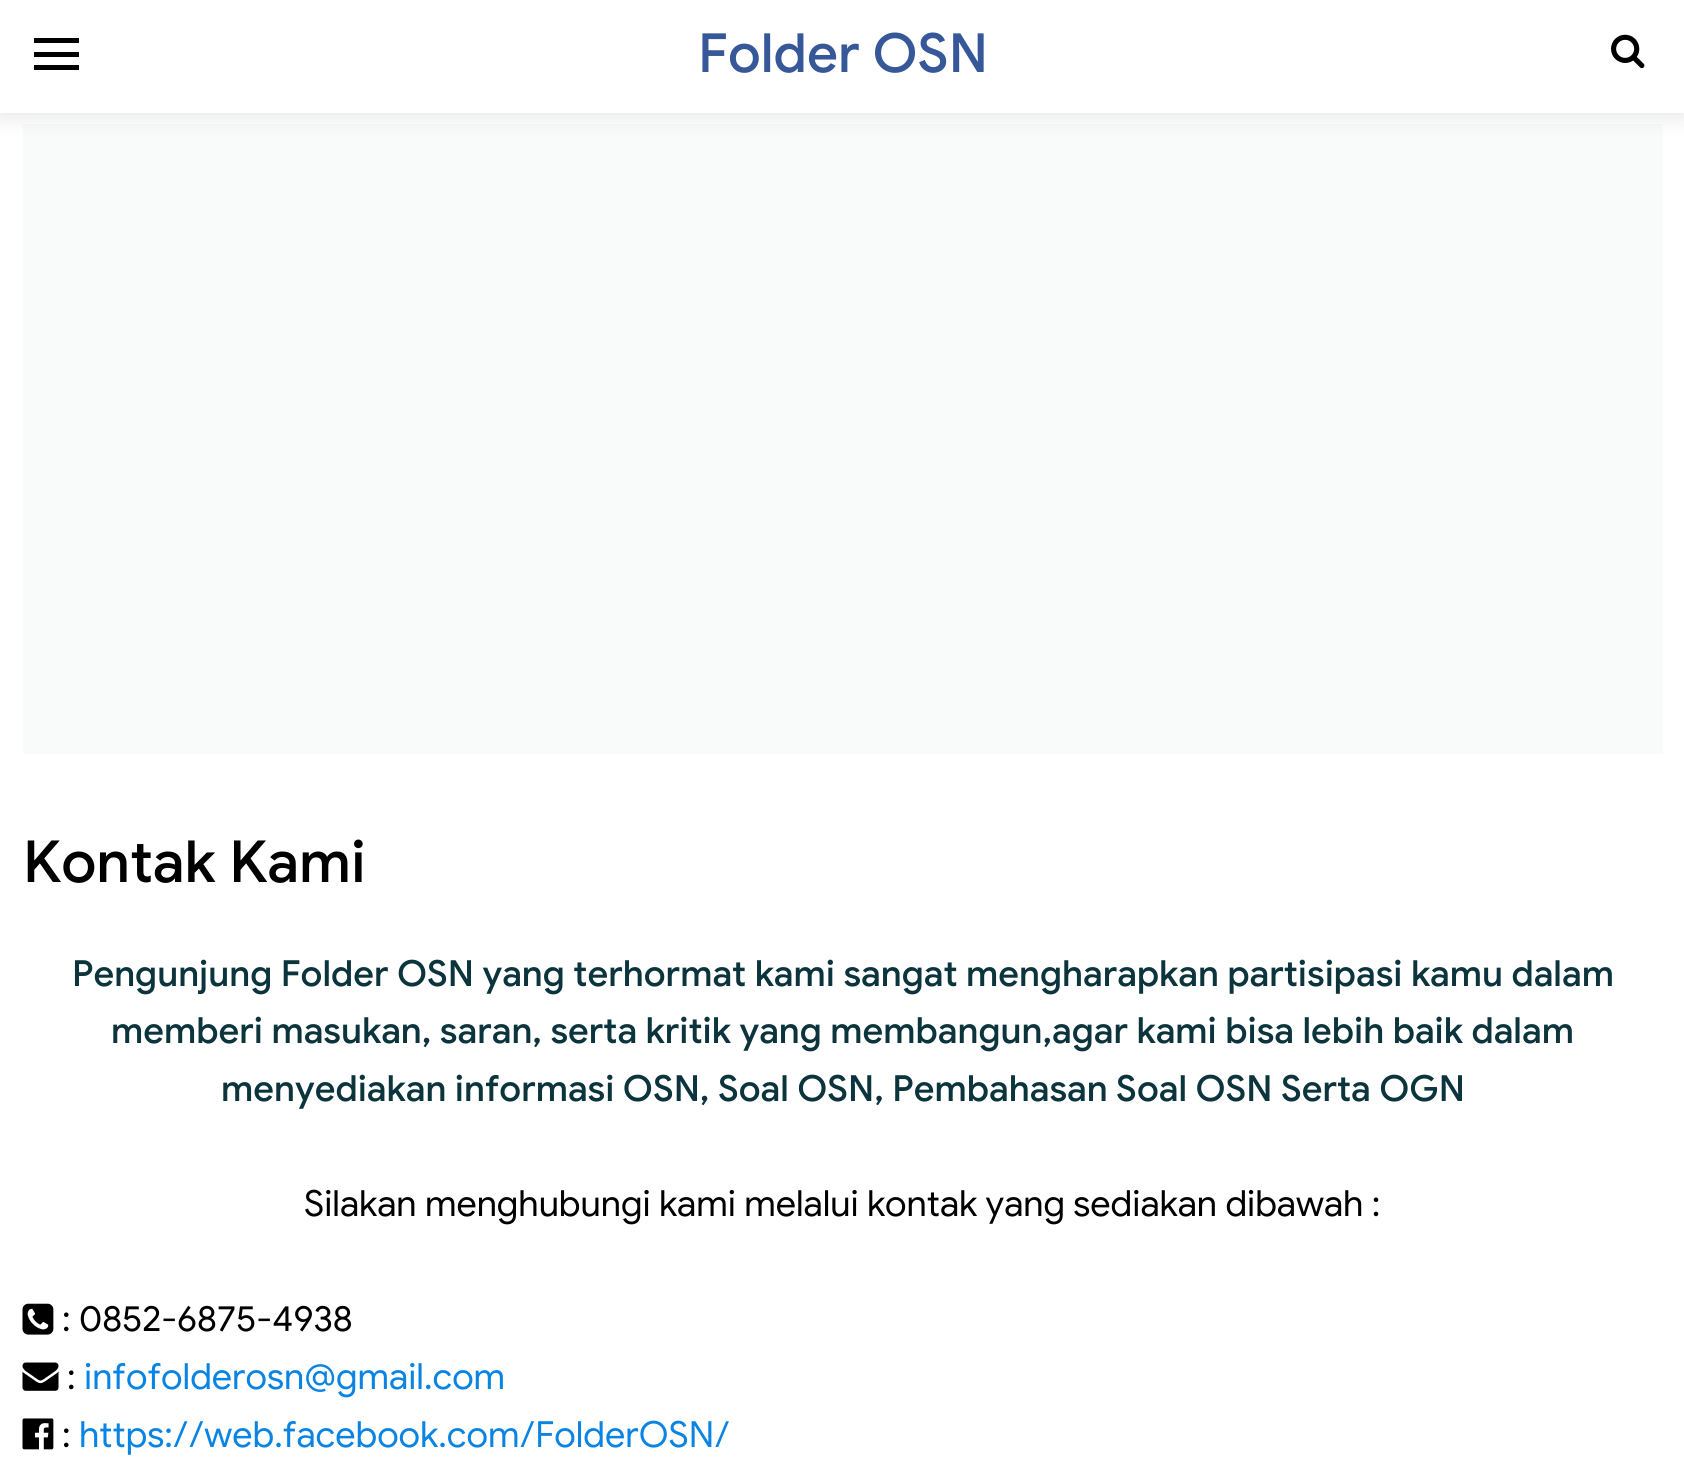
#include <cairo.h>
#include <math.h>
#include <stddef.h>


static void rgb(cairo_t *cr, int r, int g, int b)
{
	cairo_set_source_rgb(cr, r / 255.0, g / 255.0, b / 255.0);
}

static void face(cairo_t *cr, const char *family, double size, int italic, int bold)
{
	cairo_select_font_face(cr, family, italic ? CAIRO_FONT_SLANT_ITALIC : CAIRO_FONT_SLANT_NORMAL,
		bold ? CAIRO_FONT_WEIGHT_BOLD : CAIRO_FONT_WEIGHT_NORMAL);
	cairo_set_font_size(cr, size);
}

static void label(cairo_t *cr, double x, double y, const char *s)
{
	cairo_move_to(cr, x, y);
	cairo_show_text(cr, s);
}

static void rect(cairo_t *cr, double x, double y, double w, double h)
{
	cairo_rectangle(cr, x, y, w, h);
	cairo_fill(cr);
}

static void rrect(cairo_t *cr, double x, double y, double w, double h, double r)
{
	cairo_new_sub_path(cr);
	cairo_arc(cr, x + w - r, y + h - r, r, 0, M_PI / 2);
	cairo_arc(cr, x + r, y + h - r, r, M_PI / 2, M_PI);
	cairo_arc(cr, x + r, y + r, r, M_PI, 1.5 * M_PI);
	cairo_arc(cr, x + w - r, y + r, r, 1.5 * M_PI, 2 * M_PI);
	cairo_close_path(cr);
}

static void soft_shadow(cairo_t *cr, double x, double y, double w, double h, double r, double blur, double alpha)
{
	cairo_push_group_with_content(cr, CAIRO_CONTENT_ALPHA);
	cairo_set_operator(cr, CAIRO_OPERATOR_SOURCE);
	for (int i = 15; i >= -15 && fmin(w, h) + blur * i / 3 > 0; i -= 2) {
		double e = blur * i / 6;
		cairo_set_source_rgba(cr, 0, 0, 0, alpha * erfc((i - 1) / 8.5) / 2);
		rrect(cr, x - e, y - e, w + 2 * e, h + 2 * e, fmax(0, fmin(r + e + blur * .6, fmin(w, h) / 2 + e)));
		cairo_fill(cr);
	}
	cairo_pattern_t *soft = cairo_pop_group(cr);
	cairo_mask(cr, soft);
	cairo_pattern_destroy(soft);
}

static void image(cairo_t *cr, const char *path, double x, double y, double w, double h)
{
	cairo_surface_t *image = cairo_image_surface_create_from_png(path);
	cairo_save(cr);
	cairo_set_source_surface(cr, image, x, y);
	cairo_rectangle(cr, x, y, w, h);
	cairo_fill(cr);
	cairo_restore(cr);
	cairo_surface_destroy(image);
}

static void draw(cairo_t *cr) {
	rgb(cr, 255, 255, 255);
	cairo_paint(cr);
	rgb(cr, 249, 250, 250);
	rect(cr, 23, 124, 1640, 630);
	rgb(cr, 0, 0, 0);
	soft_shadow(cr, 0, 5, 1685, 112, 0, 11, 0.1);
	rgb(cr, 255, 255, 255);
	rect(cr, 0, 0, 1684, 113);
	rgb(cr, 0, 0, 0);
	rect(cr, 34, 38, 45, 5);
	rect(cr, 34, 52, 45, 5);
	rect(cr, 34, 65, 45, 5);
	face(cr, "Google Sans Medium", 54, 0, 0);
	rgb(cr, 54, 88, 153);
	label(cr, 698, 72, "Folder OSN");
	image(cr, "image0.png", 1611, 34, 34, 35);
	face(cr, "Google Sans Medium", 58, 0, 0);
	rgb(cr, 0, 0, 0);
	label(cr, 23, 882, "Kontak Kami");
	face(cr, "Google Sans Medium", 36, 0, 0);
	rgb(cr, 12, 52, 61);
	label(cr, 72, 986, "Pengunjung Folder OSN yang terhormat kami sangat mengharapkan partisipasi kamu dalam");
	label(cr, 111, 1043, "memberi masukan, saran, serta kritik yang membangun,agar kami bisa lebih baik dalam");
	label(cr, 221, 1101, "menyediakan informasi OSN, Soal OSN, Pembahasan Soal OSN Serta OGN");
	face(cr, "Google Sans", 36, 0, 0);
	rgb(cr, 0, 0, 0);
	label(cr, 304, 1216, "Silakan menghubungi kami melalui kontak yang sediakan dibawah :");
	image(cr, "image1.png", 22, 1303, 32, 32);
	label(cr, 62, 1331, ": 0852-6875-4938");
	image(cr, "image2.png", 22, 1362, 37, 29);
	label(cr, 67, 1389, ":");
	rgb(cr, 9, 132, 227);
	label(cr, 84, 1389, "infofolderosn@gmail.com");
	image(cr, "image3.png", 22, 1418, 32, 32);
	rgb(cr, 0, 0, 0);
	label(cr, 62, 1447, ":");
	rgb(cr, 9, 132, 227);
	label(cr, 79, 1447, "https://web.facebook.com/FolderOSN/");
}

int main(void) {
	cairo_surface_t *surface = cairo_image_surface_create(CAIRO_FORMAT_RGB24, 1684, 1476);
	cairo_t *cr = cairo_create(surface);
	cairo_font_options_t *options = cairo_font_options_create();
	cairo_font_options_set_hint_metrics(options, CAIRO_HINT_METRICS_OFF);
	cairo_font_options_set_hint_style(options, CAIRO_HINT_STYLE_NONE);
	cairo_set_font_options(cr, options);
	cairo_set_miter_limit(cr, 4);
	draw(cr);
	cairo_surface_write_to_png(surface, "render.png");
	cairo_font_options_destroy(options);
	cairo_destroy(cr);
	cairo_surface_destroy(surface);
	return 0;
}
